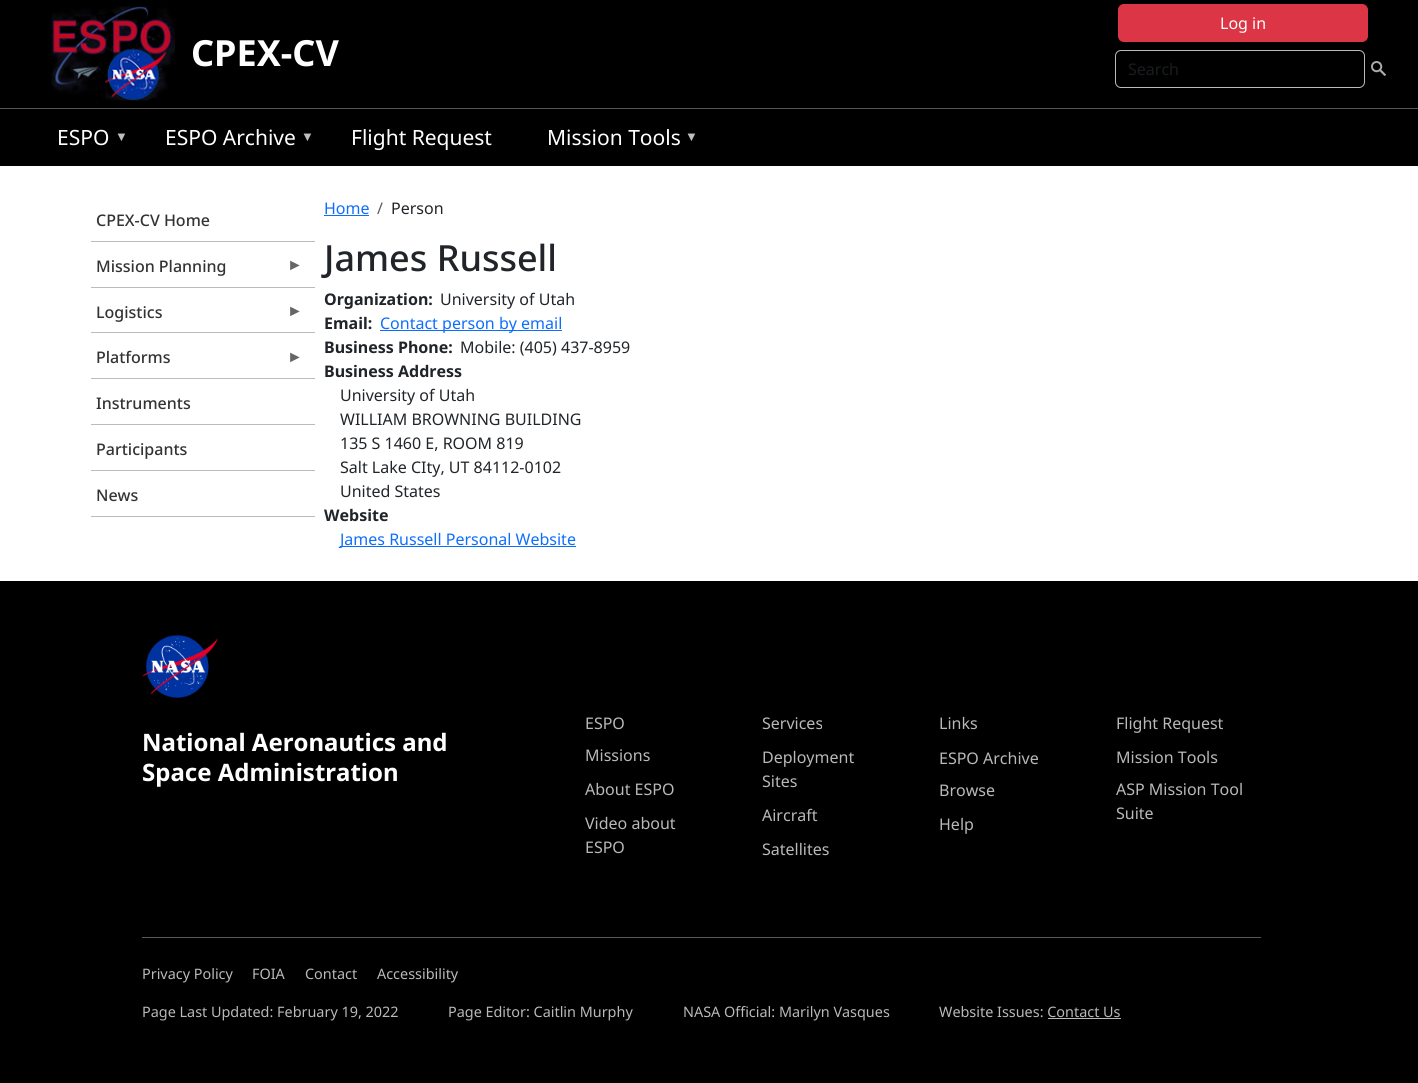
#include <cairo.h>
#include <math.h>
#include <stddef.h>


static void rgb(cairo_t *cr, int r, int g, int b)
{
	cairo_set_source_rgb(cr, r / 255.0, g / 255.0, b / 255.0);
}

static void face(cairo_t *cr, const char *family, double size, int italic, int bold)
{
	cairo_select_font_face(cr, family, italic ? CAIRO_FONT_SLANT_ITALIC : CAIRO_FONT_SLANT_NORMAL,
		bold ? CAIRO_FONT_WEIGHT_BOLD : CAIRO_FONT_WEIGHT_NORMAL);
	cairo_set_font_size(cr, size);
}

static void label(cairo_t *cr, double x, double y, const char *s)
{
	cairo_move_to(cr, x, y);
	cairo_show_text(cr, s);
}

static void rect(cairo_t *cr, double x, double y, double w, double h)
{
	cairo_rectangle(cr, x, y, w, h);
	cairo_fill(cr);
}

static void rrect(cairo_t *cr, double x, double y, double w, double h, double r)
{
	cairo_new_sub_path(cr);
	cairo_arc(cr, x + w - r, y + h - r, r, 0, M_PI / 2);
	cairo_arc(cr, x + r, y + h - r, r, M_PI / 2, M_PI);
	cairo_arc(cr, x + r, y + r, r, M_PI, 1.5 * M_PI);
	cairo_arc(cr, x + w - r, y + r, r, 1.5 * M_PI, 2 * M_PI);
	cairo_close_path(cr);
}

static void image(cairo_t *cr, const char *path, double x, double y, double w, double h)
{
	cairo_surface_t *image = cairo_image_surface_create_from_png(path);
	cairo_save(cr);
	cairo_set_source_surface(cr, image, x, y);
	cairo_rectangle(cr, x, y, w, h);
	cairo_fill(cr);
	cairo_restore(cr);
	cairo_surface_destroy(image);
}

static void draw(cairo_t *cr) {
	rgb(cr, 255, 255, 255);
	cairo_paint(cr);
	rgb(cr, 0, 0, 0);
	rect(cr, 0, 0, 1418, 108);
	rgb(cr, 220, 53, 69);
	rrect(cr, 1118.5, 4.5, 249, 37, 5.5);
	cairo_fill_preserve(cr);
	cairo_set_line_width(cr, 1);
	cairo_stroke(cr);
	face(cr, "Noto Sans", 16, 0, 0);
	rgb(cr, 255, 255, 255);
	label(cr, 1220, 29, "Log in");
	image(cr, "image0.png", 51, 6, 124, 95);
	face(cr, "Noto Sans", 36, 0, 1);
	label(cr, 191, 66, "CPEX-CV");
	rrect(cr, 1115.5, 50.5, 249, 37, 5.5);
	rgb(cr, 187, 187, 187);
	cairo_stroke(cr);
	face(cr, "Noto Sans", 16, 0, 0);
	rgb(cr, 25, 28, 31);
	label(cr, 1128, 75, "Search");
	image(cr, "image1.png", 1371, 61, 15, 15);
	rgb(cr, 0, 0, 0);
	rect(cr, 0, 109, 1418, 57);
	rgb(cr, 85, 85, 85);
	rect(cr, 0, 108, 1418, 1);
	face(cr, "Noto Sans", 21, 0, 0);
	rgb(cr, 255, 255, 255);
	label(cr, 57, 145, "ESPO");
	face(cr, "Liberation Sans", 13, 0, 0);
	rgb(cr, 191, 191, 191);
	label(cr, 115, 141, "▼");
	face(cr, "Noto Sans", 21, 0, 0);
	rgb(cr, 255, 255, 255);
	label(cr, 165, 145, "ESPO Archive");
	face(cr, "Liberation Sans", 13, 0, 0);
	rgb(cr, 191, 191, 191);
	label(cr, 301, 141, "▼");
	face(cr, "Noto Sans", 21, 0, 0);
	rgb(cr, 255, 255, 255);
	label(cr, 351, 145, "Flight Request");
	label(cr, 547, 145, "Mission Tools");
	face(cr, "Liberation Sans", 13, 0, 0);
	rgb(cr, 191, 191, 191);
	label(cr, 685, 141, "▼");
	rgb(cr, 187, 187, 187);
	rect(cr, 91, 241, 224, 1);
	face(cr, "Noto Sans Medium", 16, 0, 0);
	rgb(cr, 51, 51, 51);
	label(cr, 96, 226, "CPEX-CV Home");
	rgb(cr, 187, 187, 187);
	rect(cr, 91, 287, 224, 1);
	rgb(cr, 51, 51, 51);
	label(cr, 96, 272, "Mission Planning");
	face(cr, "Liberation Sans", 16, 0, 0);
	rgb(cr, 102, 102, 102);
	label(cr, 287, 270, "►");
	rgb(cr, 187, 187, 187);
	rect(cr, 91, 332, 224, 1);
	face(cr, "Noto Sans Medium", 16, 0, 0);
	rgb(cr, 51, 51, 51);
	label(cr, 96, 318, "Logistics");
	face(cr, "Liberation Sans", 16, 0, 0);
	rgb(cr, 102, 102, 102);
	label(cr, 287, 316, "►");
	rgb(cr, 187, 187, 187);
	rect(cr, 91, 378, 224, 1);
	face(cr, "Noto Sans Medium", 16, 0, 0);
	rgb(cr, 51, 51, 51);
	label(cr, 96, 363, "Platforms");
	face(cr, "Liberation Sans", 16, 0, 0);
	rgb(cr, 102, 102, 102);
	label(cr, 287, 362, "►");
	rgb(cr, 187, 187, 187);
	rect(cr, 91, 424, 224, 1);
	face(cr, "Noto Sans Medium", 16, 0, 0);
	rgb(cr, 51, 51, 51);
	label(cr, 96, 409, "Instruments");
	rgb(cr, 187, 187, 187);
	rect(cr, 91, 470, 224, 1);
	rgb(cr, 51, 51, 51);
	label(cr, 96, 455, "Participants");
	rgb(cr, 187, 187, 187);
	rect(cr, 91, 516, 224, 1);
	rgb(cr, 51, 51, 51);
	label(cr, 96, 501, "News");
	face(cr, "Noto Sans", 16, 0, 0);
	rgb(cr, 13, 110, 253);
	label(cr, 324, 214, "Home");
	rect(cr, 324, 215, 45, 1);
	rgb(cr, 89, 92, 95);
	label(cr, 377, 214, "/");
	rgb(cr, 33, 37, 41);
	label(cr, 391, 214, "Person");
	face(cr, "Noto Sans Medium", 36, 0, 0);
	label(cr, 324, 271, "James Russell");
	face(cr, "Noto Sans", 16, 0, 1);
	label(cr, 324, 305, "Organization:");
	face(cr, "Noto Sans", 16, 0, 0);
	label(cr, 440, 305, "University of Utah");
	face(cr, "Noto Sans", 16, 0, 1);
	label(cr, 324, 329, "Email:");
	rgb(cr, 13, 110, 253);
	rect(cr, 380, 330, 182, 1);
	face(cr, "Noto Sans", 16, 0, 0);
	label(cr, 380, 329, "Contact person by email");
	face(cr, "Noto Sans", 16, 0, 1);
	rgb(cr, 33, 37, 41);
	label(cr, 324, 353, "Business Phone:");
	face(cr, "Noto Sans", 16, 0, 0);
	label(cr, 460, 353, "Mobile: (405) 437-8959");
	face(cr, "Noto Sans", 16, 0, 1);
	label(cr, 324, 377, "Business Address");
	face(cr, "Noto Sans", 16, 0, 0);
	label(cr, 340, 401, "University of Utah");
	label(cr, 340, 425, "WILLIAM BROWNING BUILDING");
	label(cr, 340, 449, "135 S 1460 E, ROOM 819");
	label(cr, 340, 473, "Salt Lake CIty, UT 84112-0102");
	label(cr, 340, 497, "United States");
	face(cr, "Noto Sans", 16, 0, 1);
	label(cr, 324, 521, "Website");
	rgb(cr, 13, 110, 253);
	rect(cr, 340, 546, 236, 1);
	face(cr, "Noto Sans", 16, 0, 0);
	label(cr, 340, 545, "James Russell Personal Website");
	rgb(cr, 0, 0, 0);
	rect(cr, 0, 581, 1418, 502);
	image(cr, "image2.png", 142, 635, 76, 63);
	face(cr, "Noto Sans", 24, 0, 1);
	rgb(cr, 255, 255, 255);
	label(cr, 142, 751, "National Aeronautics and");
	label(cr, 142, 781, "Space Administration");
	face(cr, "Noto Sans", 16, 0, 0);
	rgb(cr, 185, 185, 187);
	label(cr, 762, 729, "Services");
	label(cr, 939, 729, "Links");
	label(cr, 585, 761, "Missions");
	label(cr, 762, 763, "Deployment");
	label(cr, 762, 787, "Sites");
	label(cr, 585, 795, "About ESPO");
	label(cr, 585, 829, "Video about");
	label(cr, 585, 853, "ESPO");
	label(cr, 762, 821, "Aircraft");
	label(cr, 762, 855, "Satellites");
	label(cr, 585, 729, "ESPO");
	label(cr, 1116, 729, "Flight Request");
	label(cr, 939, 764, "ESPO Archive");
	label(cr, 939, 796, "Browse");
	label(cr, 939, 830, "Help");
	label(cr, 1116, 763, "Mission Tools");
	label(cr, 1116, 795, "ASP Mission Tool");
	label(cr, 1116, 819, "Suite");
	rgb(cr, 88, 88, 91);
	rect(cr, 142, 937, 1119, 1);
	face(cr, "Noto Sans", 14.4, 0, 0);
	rgb(cr, 185, 185, 187);
	label(cr, 142, 979, "Privacy Policy");
	label(cr, 252, 979, "FOIA");
	label(cr, 305, 979, "Contact");
	label(cr, 377, 979, "Accessibility");
	label(cr, 142, 1017, "Page Last Updated: February 19, 2022");
	label(cr, 448, 1017, "Page Editor: Caitlin Murphy");
	label(cr, 683, 1017, "NASA Official: Marilyn Vasques");
	label(cr, 939, 1017, "Website Issues: Contact Us");
	rect(cr, 1048, 1018, 73, 1);
}

int main(void) {
	cairo_surface_t *surface = cairo_image_surface_create(CAIRO_FORMAT_RGB24, 1418, 1083);
	cairo_t *cr = cairo_create(surface);
	cairo_font_options_t *options = cairo_font_options_create();
	cairo_font_options_set_hint_metrics(options, CAIRO_HINT_METRICS_OFF);
	cairo_font_options_set_hint_style(options, CAIRO_HINT_STYLE_NONE);
	cairo_set_font_options(cr, options);
	cairo_set_miter_limit(cr, 4);
	draw(cr);
	cairo_surface_write_to_png(surface, "render.png");
	cairo_font_options_destroy(options);
	cairo_destroy(cr);
	cairo_surface_destroy(surface);
	return 0;
}
